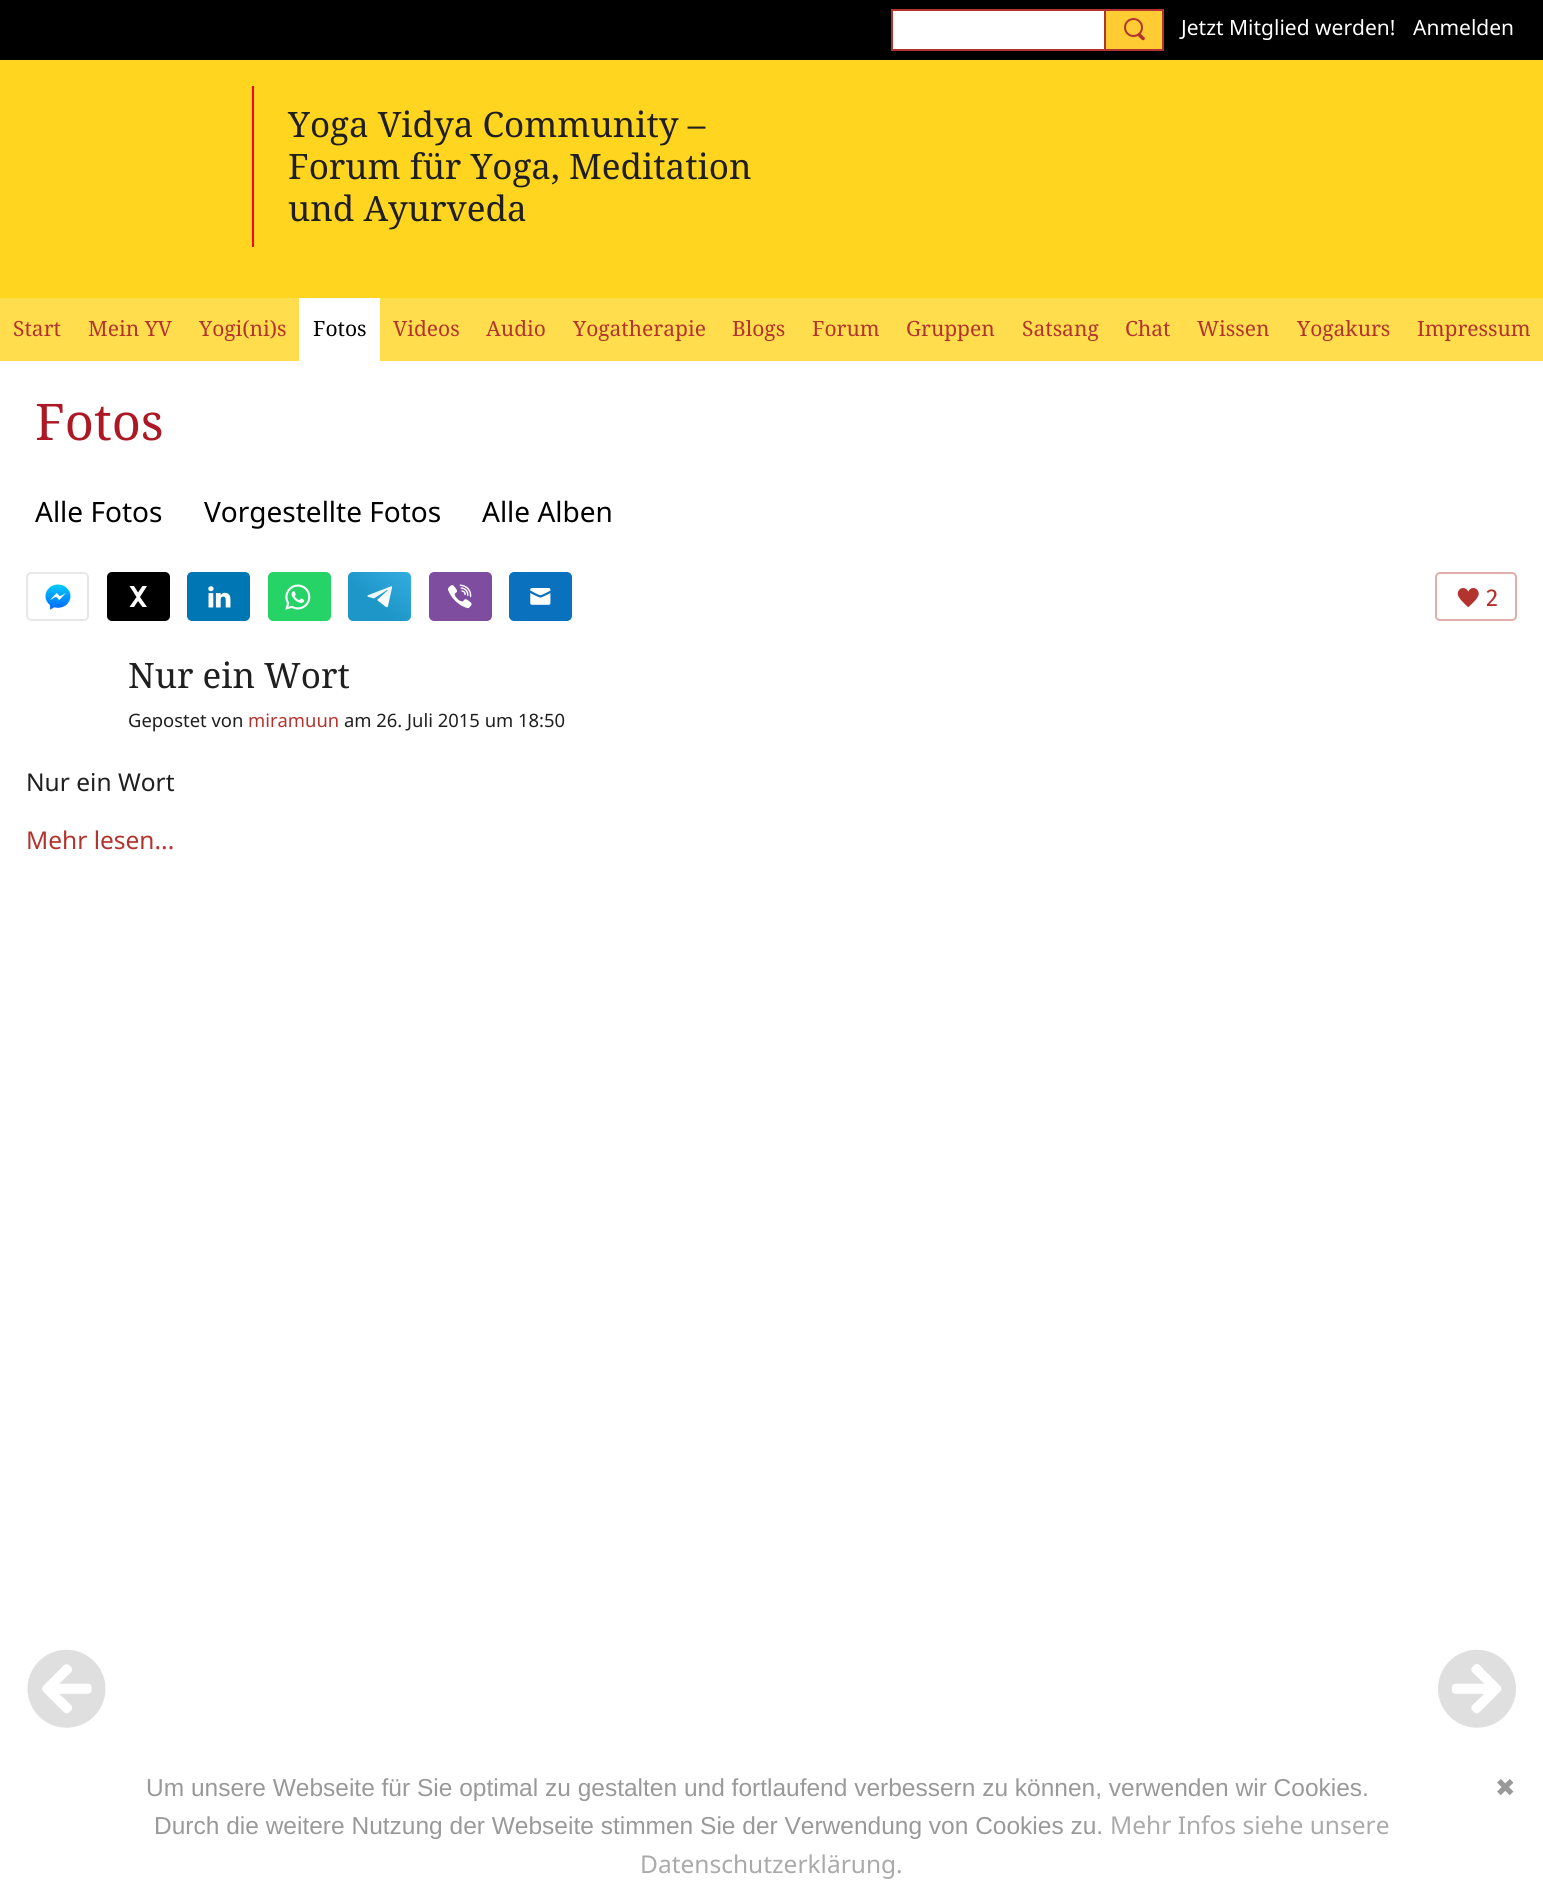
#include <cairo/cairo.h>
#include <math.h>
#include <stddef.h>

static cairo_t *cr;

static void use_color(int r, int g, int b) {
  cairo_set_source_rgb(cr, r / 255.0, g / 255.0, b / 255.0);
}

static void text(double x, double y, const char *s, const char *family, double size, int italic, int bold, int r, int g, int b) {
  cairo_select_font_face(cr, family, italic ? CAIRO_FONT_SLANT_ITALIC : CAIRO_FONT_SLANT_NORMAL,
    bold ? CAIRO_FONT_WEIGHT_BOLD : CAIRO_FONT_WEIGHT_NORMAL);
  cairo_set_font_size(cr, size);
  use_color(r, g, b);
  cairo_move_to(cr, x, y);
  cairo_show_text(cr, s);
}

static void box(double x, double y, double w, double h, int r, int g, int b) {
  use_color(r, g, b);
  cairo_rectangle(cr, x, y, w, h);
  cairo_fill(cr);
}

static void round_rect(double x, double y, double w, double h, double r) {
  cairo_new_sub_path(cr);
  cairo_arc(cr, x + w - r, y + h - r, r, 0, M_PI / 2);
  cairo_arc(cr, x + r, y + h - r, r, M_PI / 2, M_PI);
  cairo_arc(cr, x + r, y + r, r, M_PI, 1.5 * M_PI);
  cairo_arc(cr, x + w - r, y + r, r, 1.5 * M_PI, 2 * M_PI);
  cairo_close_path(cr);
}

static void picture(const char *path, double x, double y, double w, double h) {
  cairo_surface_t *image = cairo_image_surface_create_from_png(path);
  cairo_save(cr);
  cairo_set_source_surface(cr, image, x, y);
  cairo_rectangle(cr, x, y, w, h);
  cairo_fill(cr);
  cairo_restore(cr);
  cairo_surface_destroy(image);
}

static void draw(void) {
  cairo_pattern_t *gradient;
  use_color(255, 213, 32);
  cairo_paint(cr);
  box(0, 0, 1543, 60, 0, 0, 0);
  use_color(255, 255, 255);
  cairo_rectangle(cr, 892, 10, 213, 40);
  cairo_fill_preserve(cr);
  use_color(179, 52, 46);
  cairo_stroke(cr);
  use_color(255, 204, 51);
  cairo_rectangle(cr, 1105, 10, 58, 40);
  cairo_fill_preserve(cr);
  use_color(179, 52, 46);
  cairo_stroke(cr);
  cairo_arc(cr, 1133.5, 27.5, 8.5, 0, 2 * M_PI);
  cairo_stroke(cr);
  cairo_new_path(cr);
  cairo_move_to(cr, 1140.5, 33.5);
  cairo_line_to(cr, 1144.5, 37.5);
  cairo_curve_to(cr, 1145, 38, 1145, 39, 1144.5, 39.5);
  cairo_curve_to(cr, 1143, 42, 1139.5, 37.5, 1138, 36);
  cairo_curve_to(cr, 1136.5, 34.5, 1139, 32, 1140.5, 33.5);
  cairo_close_path(cr);
  cairo_fill(cr);
  box(252, 86, 2, 161, 255, 0, 0);
  box(0, 298, 1543, 63, 255, 221, 77);
  box(299, 298, 81, 63, 255, 255, 255);
  box(0, 361, 1543, 1530, 255, 255, 255);
  picture("img_01.png", 26, 572, 63, 49);
  use_color(0, 0, 0);
  round_rect(107, 572, 63, 49, 5);
  cairo_fill(cr);
  use_color(255, 255, 255);
  cairo_set_fill_rule(cr, CAIRO_FILL_RULE_EVEN_ODD);
  cairo_new_path(cr);
  cairo_move_to(cr, 129.5, 586);
  cairo_line_to(cr, 136.5, 597);
  cairo_line_to(cr, 129.5, 607);
  cairo_line_to(cr, 134, 607);
  cairo_line_to(cr, 138, 601);
  cairo_line_to(cr, 142.5, 607);
  cairo_line_to(cr, 147, 607);
  cairo_line_to(cr, 140, 597);
  cairo_line_to(cr, 147, 586);
  cairo_line_to(cr, 142.5, 586);
  cairo_line_to(cr, 138, 592.5);
  cairo_line_to(cr, 134, 586);
  cairo_close_path(cr);
  cairo_fill(cr);
  picture("img_02.png", 187, 572, 63, 49);
  picture("img_03.png", 268, 572, 63, 49);
  gradient = cairo_pattern_create_linear(417, 573, 385, 612);
  cairo_pattern_add_color_stop_rgba(gradient, 0, 0.216, 0.682, 0.886, 1);
  cairo_pattern_add_color_stop_rgba(gradient, 1, 0.118, 0.588, 0.784, 1);
  cairo_set_source(cr, gradient);
  cairo_pattern_destroy(gradient);
  round_rect(348, 572, 63, 49, 5);
  cairo_fill(cr);
  gradient = cairo_pattern_create_linear(383, 596, 385, 602);
  cairo_pattern_add_color_stop_rgba(gradient, 0, 0.937, 0.969, 0.988, 1);
  cairo_pattern_add_color_stop_rgba(gradient, 1, 1, 1, 1, 1);
  cairo_set_source(cr, gradient);
  cairo_pattern_destroy(gradient);
  cairo_set_fill_rule(cr, CAIRO_FILL_RULE_WINDING);
  cairo_new_path(cr);
  cairo_move_to(cr, 377, 600);
  cairo_line_to(cr, 386, 607);
  cairo_curve_to(cr, 387, 607.5, 388, 607, 388, 606);
  cairo_line_to(cr, 392, 588);
  cairo_curve_to(cr, 392.5, 586.5, 391.5, 586, 390.5, 586.5);
  cairo_line_to(cr, 368.5, 595);
  cairo_curve_to(cr, 367, 595.5, 367, 596.5, 368.5, 597);
  cairo_line_to(cr, 374, 598.5);
  cairo_line_to(cr, 387, 590);
  cairo_curve_to(cr, 387.5, 590, 388, 590, 387.5, 590.5);
  cairo_fill(cr);
  picture("img_04.png", 429, 572, 63, 49);
  picture("img_05.png", 509, 572, 63, 49);
  round_rect(1436, 573, 80, 47, 4);
  use_color(225, 174, 171);
  cairo_stroke(cr);
  picture("img_06.png", 1457, 588, 22, 20);
  picture("img_07.png", 27, 1649, 79, 79);
  picture("img_08.png", 1438, 1649, 78, 79);
  text(1181, 35, "Jetzt Mitglied werden!", "Noto Sans", 21, 0, 0, 255, 255, 255);
  text(1413, 35, "Anmelden", "Noto Sans", 21, 0, 0, 255, 255, 255);
  text(288, 137, "Yoga Vidya Community –", "Noto Serif", 35, 0, 0, 31, 31, 31);
  text(288, 179, "Forum für Yoga, Meditation", "Noto Serif", 35, 0, 0, 31, 31, 31);
  text(288, 221, "und Ayurveda", "Noto Serif", 35, 0, 0, 31, 31, 31);
  text(13, 336, "Start", "Noto Serif", 21, 0, 0, 179, 52, 46);
  text(88, 336, "Mein YV", "Noto Serif", 21, 0, 0, 179, 52, 46);
  text(199, 336, "Yogi(ni)s", "Noto Serif", 21, 0, 0, 179, 52, 46);
  text(313, 336, "Fotos", "Noto Serif", 21, 0, 0, 0, 0, 0);
  text(393, 336, "Videos", "Noto Serif", 21, 0, 0, 179, 52, 46);
  text(486, 336, "Audio", "Noto Serif", 21, 0, 0, 179, 52, 46);
  text(573, 336, "Yogatherapie", "Noto Serif", 21, 0, 0, 179, 52, 46);
  text(732, 336, "Blogs", "Noto Serif", 21, 0, 0, 179, 52, 46);
  text(812, 336, "Forum", "Noto Serif", 21, 0, 0, 179, 52, 46);
  text(906, 336, "Gruppen", "Noto Serif", 21, 0, 0, 179, 52, 46);
  text(1022, 336, "Satsang", "Noto Serif", 21, 0, 0, 179, 52, 46);
  text(1125, 336, "Chat", "Noto Serif", 21, 0, 0, 179, 52, 46);
  text(1197, 336, "Wissen", "Noto Serif", 21, 0, 0, 179, 52, 46);
  text(1297, 336, "Yogakurs", "Noto Serif", 21, 0, 0, 179, 52, 46);
  text(1417, 336, "Impressum", "Noto Serif", 21, 0, 0, 179, 52, 46);
  text(35, 440, "Fotos", "Noto Serif", 50.5, 0, 0, 172, 25, 36);
  text(35, 522, "Alle Fotos", "Noto Sans", 28, 0, 0, 0, 0, 0);
  text(204, 522, "Vorgestellte Fotos", "Noto Sans", 28, 0, 0, 0, 0, 0);
  text(482, 522, "Alle Alben", "Noto Sans", 28, 0, 0, 0, 0, 0);
  text(1486, 606, "2", "Fira Sans", 24.5, 0, 0, 179, 52, 46);
  text(128, 688, "Nur ein Wort", "Noto Serif", 35, 0, 0, 31, 31, 31);
  text(128, 727, "Gepostet von", "Noto Sans", 18.4, 0, 0, 31, 31, 31);
  text(248, 727, "miramuun", "Noto Sans", 18.4, 0, 0, 179, 52, 46);
  text(344, 727, "am 26. Juli 2015 um 18:50", "Noto Sans", 18.4, 0, 0, 31, 31, 31);
  text(26, 791, "Nur ein Wort", "Noto Sans", 24.5, 0, 0, 31, 31, 31);
  text(26, 849, "Mehr lesen...", "Noto Sans", 24.5, 0, 0, 179, 52, 46);
  text(146, 1796, "Um unsere Webseite für Sie optimal zu gestalten und fortlaufend verbessern zu können, verwenden wir Cookies.", "Liberation Sans", 24.5, 0, 0, 153, 153, 153);
  text(1495, 1796, "✖", "DejaVu Sans", 24.5, 0, 0, 153, 153, 153);
  text(154, 1834, "Durch die weitere Nutzung der Webseite stimmen Sie der Verwendung von Cookies zu.", "Liberation Sans", 24.5, 0, 0, 153, 153, 153);
  text(1110, 1834, "Mehr Infos siehe unsere", "Noto Sans", 24.5, 0, 0, 170, 170, 170);
  text(640, 1873, "Datenschutzerklärung.", "Noto Sans", 24.5, 0, 0, 170, 170, 170);
}

int main(void) {
  cairo_surface_t *surface = cairo_image_surface_create(CAIRO_FORMAT_RGB24, 1543, 1891);
  cr = cairo_create(surface);
  cairo_font_options_t *options = cairo_font_options_create();
  cairo_font_options_set_hint_metrics(options, CAIRO_HINT_METRICS_OFF);
  cairo_font_options_set_hint_style(options, CAIRO_HINT_STYLE_NONE);
  cairo_set_font_options(cr, options);
  cairo_set_miter_limit(cr, 4);
  draw();
  cairo_surface_write_to_png(surface, "out.png");
  cairo_font_options_destroy(options);
  cairo_destroy(cr);
  cairo_surface_destroy(surface);
  return 0;
}
